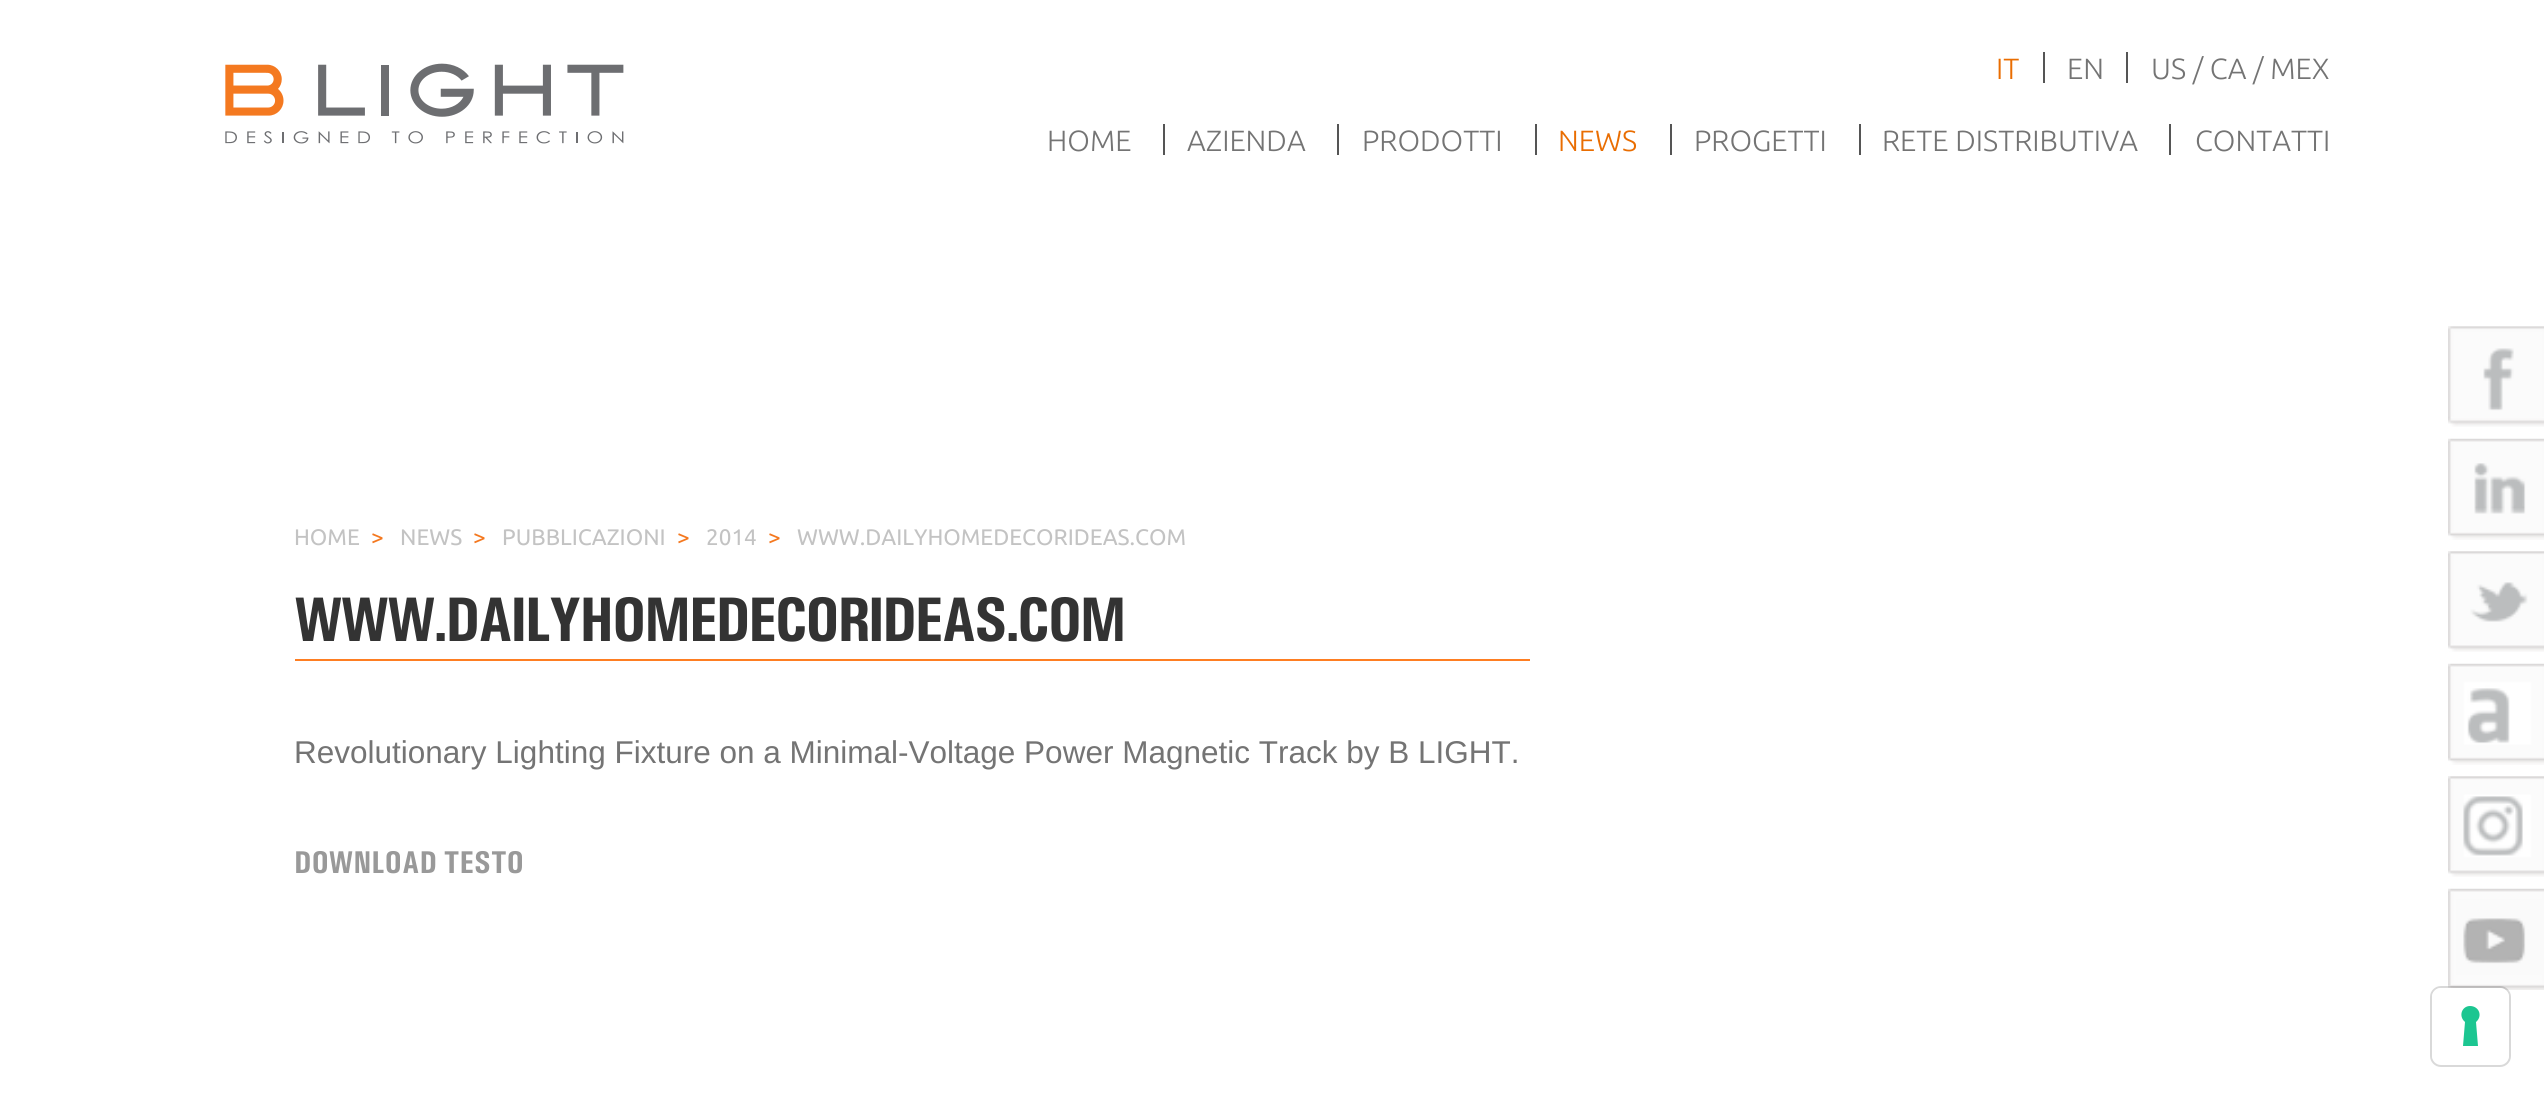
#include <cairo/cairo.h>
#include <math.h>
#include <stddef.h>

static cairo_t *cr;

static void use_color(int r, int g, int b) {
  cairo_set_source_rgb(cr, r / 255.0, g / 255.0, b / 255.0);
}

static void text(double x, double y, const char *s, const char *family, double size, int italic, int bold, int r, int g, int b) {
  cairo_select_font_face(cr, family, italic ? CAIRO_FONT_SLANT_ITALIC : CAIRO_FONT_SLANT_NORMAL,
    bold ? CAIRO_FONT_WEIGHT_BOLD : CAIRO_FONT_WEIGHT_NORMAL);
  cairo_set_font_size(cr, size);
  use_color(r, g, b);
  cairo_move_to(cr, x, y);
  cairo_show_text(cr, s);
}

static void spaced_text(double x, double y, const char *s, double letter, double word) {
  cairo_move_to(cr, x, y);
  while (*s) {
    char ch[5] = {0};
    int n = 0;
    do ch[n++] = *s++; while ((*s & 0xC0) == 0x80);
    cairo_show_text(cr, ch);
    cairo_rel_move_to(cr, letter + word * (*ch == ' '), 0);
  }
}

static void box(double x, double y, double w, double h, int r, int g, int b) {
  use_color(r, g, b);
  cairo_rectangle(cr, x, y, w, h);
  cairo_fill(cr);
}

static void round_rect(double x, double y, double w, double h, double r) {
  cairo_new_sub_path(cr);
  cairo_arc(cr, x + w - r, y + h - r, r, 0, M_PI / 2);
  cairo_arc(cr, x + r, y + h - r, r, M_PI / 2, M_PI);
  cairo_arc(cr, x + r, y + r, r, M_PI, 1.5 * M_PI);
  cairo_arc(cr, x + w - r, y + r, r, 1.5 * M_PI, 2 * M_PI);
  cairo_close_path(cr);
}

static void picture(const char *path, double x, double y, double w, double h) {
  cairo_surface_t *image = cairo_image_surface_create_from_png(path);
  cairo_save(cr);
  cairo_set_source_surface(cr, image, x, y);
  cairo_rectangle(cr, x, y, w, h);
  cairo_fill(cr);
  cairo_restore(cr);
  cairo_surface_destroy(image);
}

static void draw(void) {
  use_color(255, 255, 255);
  cairo_paint(cr);
  picture("img_01.png", 225, 63, 399, 81);
  box(2043, 52, 2, 31, 85, 85, 85);
  box(2126, 52, 2, 31, 85, 85, 85);
  box(1163, 124, 2, 31, 85, 85, 85);
  box(1337, 124, 2, 31, 85, 85, 85);
  box(1535, 124, 2, 31, 85, 85, 85);
  box(1670, 124, 2, 31, 85, 85, 85);
  box(1859, 124, 2, 31, 85, 85, 85);
  box(2169, 124, 2, 31, 85, 85, 85);
  box(295, 659, 1235, 2, 254, 126, 34);
  picture("img_02.png", 2448, 326, 96, 101);
  picture("img_03.png", 2448, 438, 96, 102);
  picture("img_04.png", 2448, 551, 96, 101);
  picture("img_05.png", 2448, 663, 96, 102);
  picture("img_06.png", 2448, 776, 96, 101);
  picture("img_07.png", 2448, 888, 96, 102);
  round_rect(2431, 987, 79, 79, 10);
  cairo_set_source_rgba(cr, 0, 0, 0, 0.15);
  cairo_stroke(cr);
  use_color(255, 255, 255);
  round_rect(2432, 988, 77, 76, 9);
  cairo_fill(cr);
  use_color(28, 198, 145);
  cairo_set_fill_rule(cr, CAIRO_FILL_RULE_EVEN_ODD);
  cairo_new_path(cr);
  cairo_move_to(cr, 2470, 1006);
  cairo_curve_to(cr, 2479, 1006, 2483, 1016, 2476, 1022);
  cairo_line_to(cr, 2478, 1046);
  cairo_line_to(cr, 2463, 1046);
  cairo_line_to(cr, 2465, 1022);
  cairo_curve_to(cr, 2458, 1016, 2462, 1006, 2470, 1006);
  cairo_close_path(cr);
  cairo_fill(cr);
  text(1996, 79, "IT", "Ubuntu Light", 29.25, 0, 0, 233, 109, 1);
  text(2067, 79, "EN", "Ubuntu Light", 29.25, 0, 0, 116, 116, 116);
  text(2151, 79, "US / CA / MEX", "Ubuntu Light", 29.25, 0, 0, 116, 116, 116);
  text(1047, 151, "HOME", "Ubuntu Light", 29.25, 0, 0, 116, 116, 116);
  text(1187, 151, "AZIENDA", "Ubuntu Light", 29.25, 0, 0, 116, 116, 116);
  text(1362, 151, "PRODOTTI", "Ubuntu Light", 29.25, 0, 0, 116, 116, 116);
  text(1558, 151, "NEWS", "Ubuntu Light", 29.25, 0, 0, 233, 109, 1);
  text(1694, 151, "PROGETTI", "Ubuntu Light", 29.25, 0, 0, 116, 116, 116);
  text(1882, 151, "RETE DISTRIBUTIVA", "Ubuntu Light", 29.25, 0, 0, 116, 116, 116);
  text(2195, 151, "CONTATTI", "Ubuntu Light", 29.25, 0, 0, 116, 116, 116);
  text(294, 545, "HOME", "Ubuntu", 22.5, 0, 0, 195, 195, 195);
  text(371, 545, ">", "Ubuntu", 22.5, 0, 0, 244, 120, 31);
  text(400, 545, "NEWS", "Ubuntu", 22.5, 0, 0, 195, 195, 195);
  text(473, 545, ">", "Ubuntu", 22.5, 0, 0, 244, 120, 31);
  text(502, 545, "PUBBLICAZIONI", "Ubuntu", 22.5, 0, 0, 195, 195, 195);
  text(677, 545, ">", "Ubuntu", 22.5, 0, 0, 244, 120, 31);
  text(706, 545, "2014", "Ubuntu", 22.5, 0, 0, 195, 195, 195);
  text(768, 545, ">", "Ubuntu", 22.5, 0, 0, 244, 120, 31);
  text(797, 545, "WWW.DAILYHOMEDECORIDEAS.COM", "Ubuntu", 22.5, 0, 0, 195, 195, 195);
  cairo_select_font_face(cr, "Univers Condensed", CAIRO_FONT_SLANT_NORMAL, CAIRO_FONT_WEIGHT_BOLD);
  cairo_set_font_size(cr, 63);
  use_color(51, 51, 51);
  spaced_text(294, 641, "WWW.DAILYHOMEDECORIDEAS.COM", -2.25, 0);
  text(294, 763, "Revolutionary Lighting Fixture on a Minimal-Voltage Power Magnetic Track by B LIGHT.", "Liberation Sans", 31.5, 0, 0, 116, 116, 116);
  text(294, 873, "DOWNLOAD TESTO", "Univers Condensed", 31.5, 0, 1, 153, 153, 153);
}

int main(void) {
  cairo_surface_t *surface = cairo_image_surface_create(CAIRO_FORMAT_RGB24, 2544, 1099);
  cr = cairo_create(surface);
  cairo_font_options_t *options = cairo_font_options_create();
  cairo_font_options_set_hint_metrics(options, CAIRO_HINT_METRICS_OFF);
  cairo_font_options_set_hint_style(options, CAIRO_HINT_STYLE_NONE);
  cairo_set_font_options(cr, options);
  cairo_set_miter_limit(cr, 4);
  draw();
  cairo_surface_write_to_png(surface, "out.png");
  cairo_font_options_destroy(options);
  cairo_destroy(cr);
  cairo_surface_destroy(surface);
  return 0;
}
